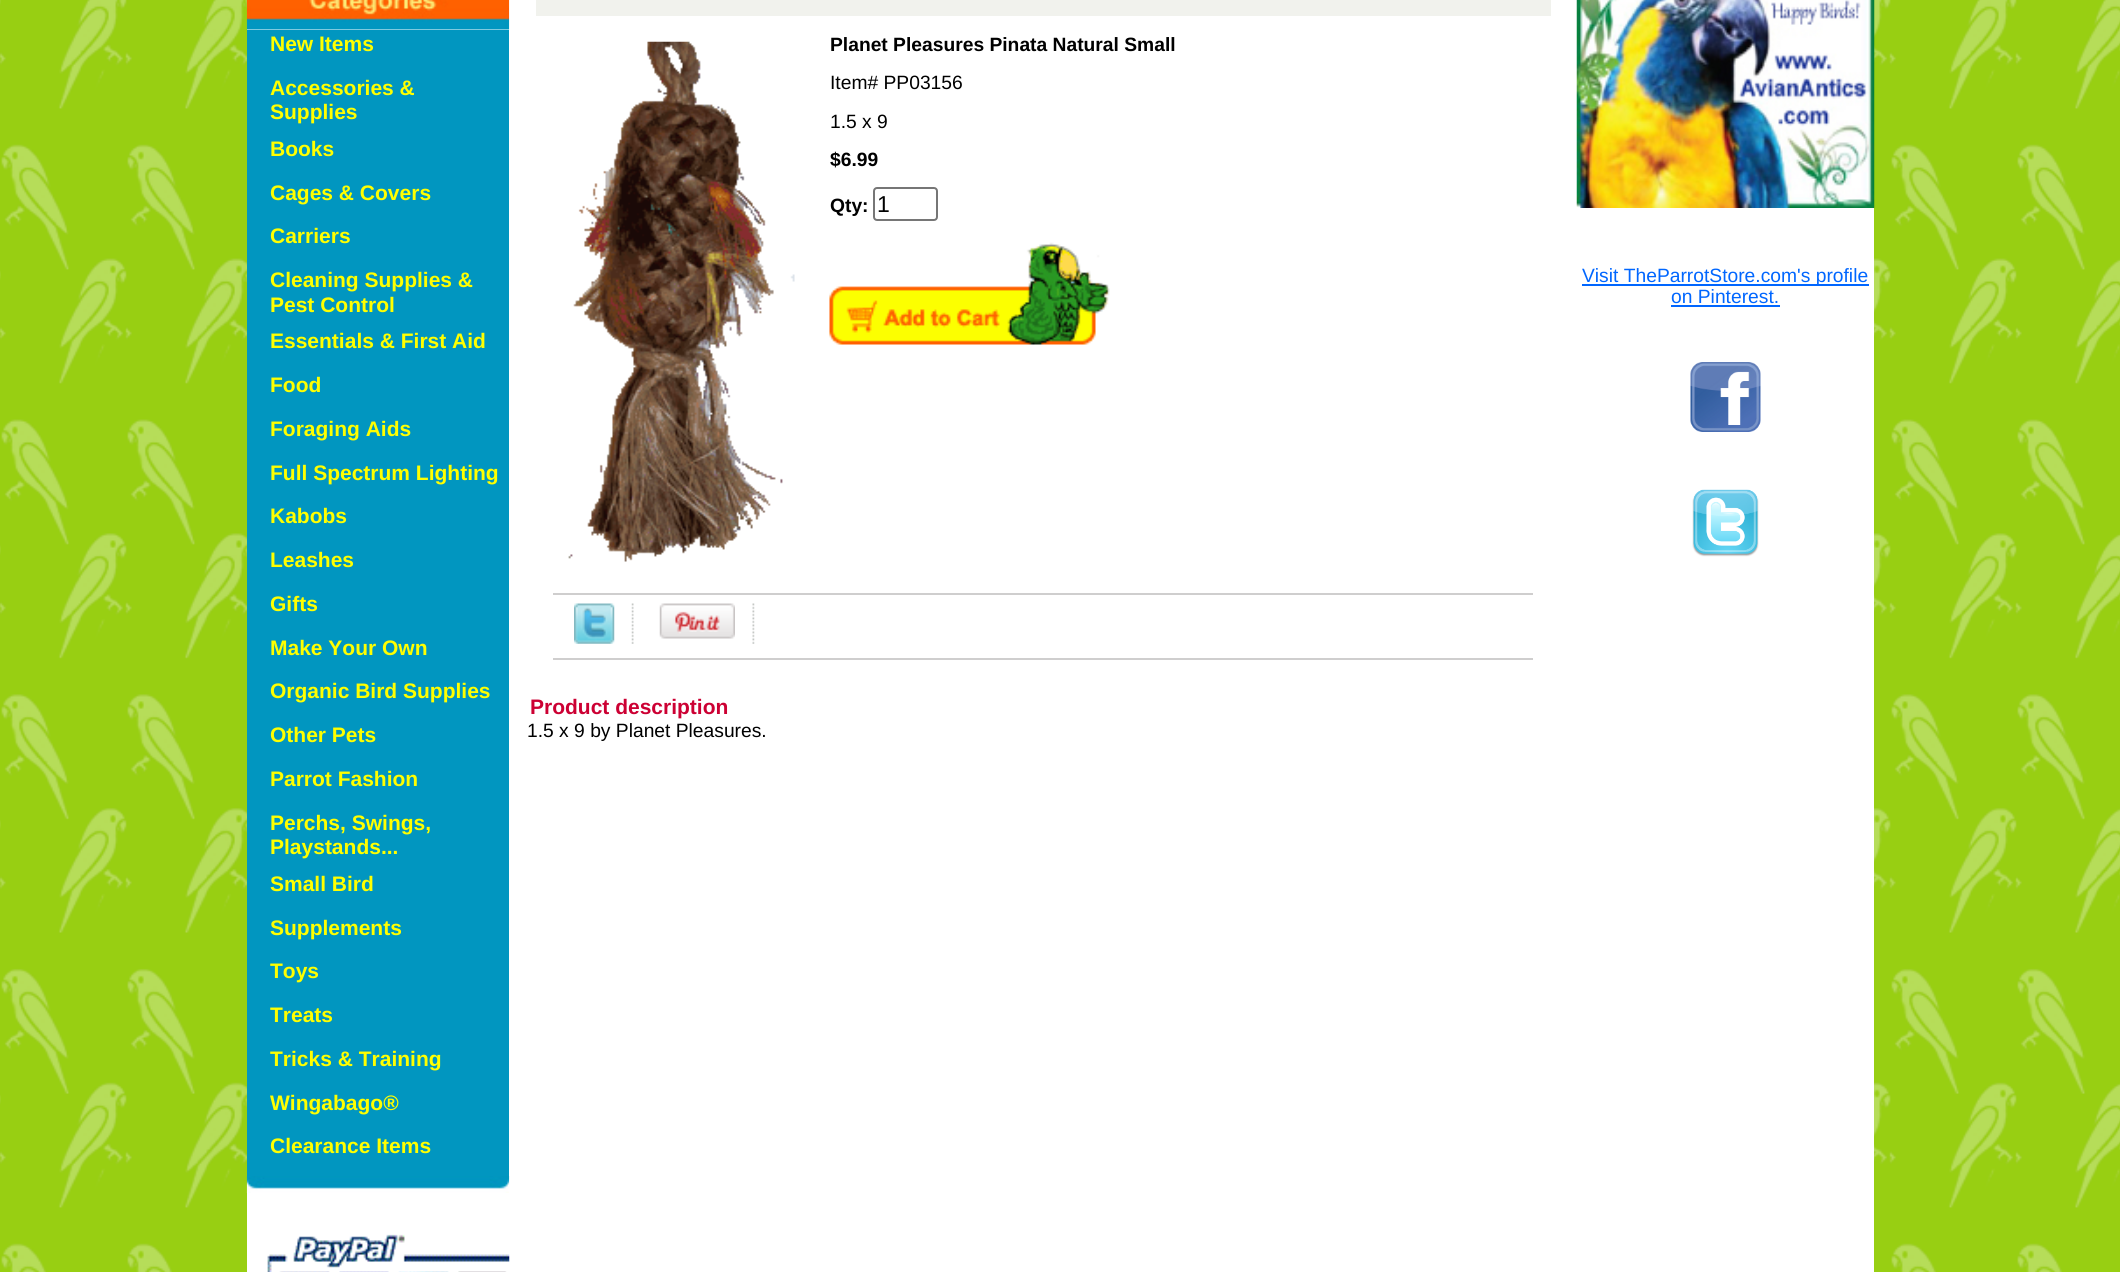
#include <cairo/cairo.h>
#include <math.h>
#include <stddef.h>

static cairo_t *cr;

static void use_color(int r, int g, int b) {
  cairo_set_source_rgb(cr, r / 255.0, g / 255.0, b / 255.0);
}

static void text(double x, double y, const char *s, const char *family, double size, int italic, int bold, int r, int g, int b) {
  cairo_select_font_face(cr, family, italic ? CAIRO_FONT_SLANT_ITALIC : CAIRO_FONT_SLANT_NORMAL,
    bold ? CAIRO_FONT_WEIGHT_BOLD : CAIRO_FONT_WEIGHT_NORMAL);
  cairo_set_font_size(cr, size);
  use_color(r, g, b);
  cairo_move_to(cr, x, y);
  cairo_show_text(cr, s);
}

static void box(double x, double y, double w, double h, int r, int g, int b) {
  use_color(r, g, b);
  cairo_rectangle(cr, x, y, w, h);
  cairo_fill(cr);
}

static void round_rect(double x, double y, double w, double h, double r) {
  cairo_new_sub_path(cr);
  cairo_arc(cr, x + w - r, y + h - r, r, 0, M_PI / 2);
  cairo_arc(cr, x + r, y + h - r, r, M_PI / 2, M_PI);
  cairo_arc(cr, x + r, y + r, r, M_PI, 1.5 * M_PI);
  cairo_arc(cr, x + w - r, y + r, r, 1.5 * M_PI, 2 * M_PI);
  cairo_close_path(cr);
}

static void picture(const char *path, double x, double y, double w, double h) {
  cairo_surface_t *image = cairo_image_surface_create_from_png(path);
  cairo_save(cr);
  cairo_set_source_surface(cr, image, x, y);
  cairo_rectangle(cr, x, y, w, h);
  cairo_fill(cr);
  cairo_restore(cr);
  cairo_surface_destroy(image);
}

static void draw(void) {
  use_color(255, 255, 255);
  cairo_paint(cr);
  picture("img_01.png", 0, 0, 2120, 1272);
  box(247, 0, 1330, 1272, 255, 255, 255);
  picture("img_02.png", 246, 0, 264, 30);
  box(247, 30, 262, 1146, 1, 150, 192);
  picture("img_03.png", 246, 1176, 264, 17);
  picture("img_04.png", 267, 1234, 243, 38);
  box(536, 0, 1015, 16, 241, 242, 237);
  picture("img_05.png", 568, 41, 227, 521);
  round_rect(874, 188, 63, 32, 3);
  use_color(118, 118, 118);
  cairo_stroke(cr);
  picture("img_06.png", 829, 242, 281, 103);
  box(553, 593, 980, 2, 207, 206, 206);
  picture("img_07.png", 574, 603, 41, 41);
  picture("img_08.png", 631, 603, 3, 41);
  picture("img_09.png", 659, 603, 76, 36);
  picture("img_10.png", 752, 603, 3, 41);
  box(553, 658, 980, 2, 207, 206, 206);
  box(1577, 208, 297, 1064, 255, 255, 255);
  picture("img_11.png", 1576, 0, 299, 208);
  box(1582, 284, 287, 2, 0, 102, 255);
  box(1671, 305, 109, 2, 0, 102, 255);
  picture("img_12.png", 1690, 362, 71, 70);
  picture("img_13.png", 1692, 489, 67, 68);
  text(270, 51, "New Items", "Liberation Sans", 21, 0, 1, 255, 255, 0);
  text(270, 95, "Accessories &", "Liberation Sans", 21, 0, 1, 255, 255, 0);
  text(270, 119, "Supplies", "Liberation Sans", 21, 0, 1, 255, 255, 0);
  text(270, 156, "Books", "Liberation Sans", 21, 0, 1, 255, 255, 0);
  text(270, 200, "Cages & Covers", "Liberation Sans", 21, 0, 1, 255, 255, 0);
  text(270, 243, "Carriers", "Liberation Sans", 21, 0, 1, 255, 255, 0);
  text(270, 287, "Cleaning Supplies &", "Liberation Sans", 21, 0, 1, 255, 255, 0);
  text(270, 312, "Pest Control", "Liberation Sans", 21, 0, 1, 255, 255, 0);
  text(270, 348, "Essentials & First Aid", "Liberation Sans", 21, 0, 1, 255, 255, 0);
  text(270, 392, "Food", "Liberation Sans", 21, 0, 1, 255, 255, 0);
  text(270, 436, "Foraging Aids", "Liberation Sans", 21, 0, 1, 255, 255, 0);
  text(270, 480, "Full Spectrum Lighting", "Liberation Sans", 21, 0, 1, 255, 255, 0);
  text(270, 523, "Kabobs", "Liberation Sans", 21, 0, 1, 255, 255, 0);
  text(270, 567, "Leashes", "Liberation Sans", 21, 0, 1, 255, 255, 0);
  text(270, 611, "Gifts", "Liberation Sans", 21, 0, 1, 255, 255, 0);
  text(270, 655, "Make Your Own", "Liberation Sans", 21, 0, 1, 255, 255, 0);
  text(270, 698, "Organic Bird Supplies", "Liberation Sans", 21, 0, 1, 255, 255, 0);
  text(270, 742, "Other Pets", "Liberation Sans", 21, 0, 1, 255, 255, 0);
  text(270, 786, "Parrot Fashion", "Liberation Sans", 21, 0, 1, 255, 255, 0);
  text(270, 830, "Perchs, Swings,", "Liberation Sans", 21, 0, 1, 255, 255, 0);
  text(270, 854, "Playstands...", "Liberation Sans", 21, 0, 1, 255, 255, 0);
  text(270, 891, "Small Bird", "Liberation Sans", 21, 0, 1, 255, 255, 0);
  text(270, 935, "Supplements", "Liberation Sans", 21, 0, 1, 255, 255, 0);
  text(270, 978, "Toys", "Liberation Sans", 21, 0, 1, 255, 255, 0);
  text(270, 1022, "Treats", "Liberation Sans", 21, 0, 1, 255, 255, 0);
  text(270, 1066, "Tricks & Training", "Liberation Sans", 21, 0, 1, 255, 255, 0);
  text(270, 1110, "Wingabago®", "Liberation Sans", 21, 0, 1, 255, 255, 0);
  text(270, 1153, "Clearance Items", "Liberation Sans", 21, 0, 1, 255, 255, 0);
  text(830, 51, "Planet Pleasures Pinata Natural Small", "Liberation Sans", 19.25, 0, 1, 0, 0, 0);
  text(830, 89, "Item# PP03156", "Liberation Sans", 19.25, 0, 0, 0, 0, 0);
  text(830, 128, "1.5 x 9", "Liberation Sans", 19.25, 0, 0, 0, 0, 0);
  text(830, 166, "$6.99", "Liberation Sans", 19.25, 0, 1, 0, 0, 0);
  text(830, 212, "Qty:", "Liberation Sans", 19.25, 0, 1, 0, 0, 0);
  text(877, 212, "1", "Liberation Sans", 23, 0, 0, 0, 0, 0);
  text(530, 714, "Product description", "Liberation Sans", 21, 0, 1, 204, 0, 51);
  text(527, 737, "1.5 x 9 by Planet Pleasures.", "Liberation Sans", 19.25, 0, 0, 0, 0, 0);
  text(1582, 282, "Visit TheParrotStore.com's profile", "Liberation Sans", 19.25, 0, 0, 0, 102, 255);
  text(1671, 303, "on Pinterest.", "Liberation Sans", 19.25, 0, 0, 0, 102, 255);
}

int main(void) {
  cairo_surface_t *surface = cairo_image_surface_create(CAIRO_FORMAT_RGB24, 2120, 1272);
  cr = cairo_create(surface);
  cairo_font_options_t *options = cairo_font_options_create();
  cairo_font_options_set_hint_metrics(options, CAIRO_HINT_METRICS_OFF);
  cairo_font_options_set_hint_style(options, CAIRO_HINT_STYLE_NONE);
  cairo_set_font_options(cr, options);
  cairo_set_miter_limit(cr, 4);
  draw();
  cairo_surface_write_to_png(surface, "out.png");
  cairo_font_options_destroy(options);
  cairo_destroy(cr);
  cairo_surface_destroy(surface);
  return 0;
}
